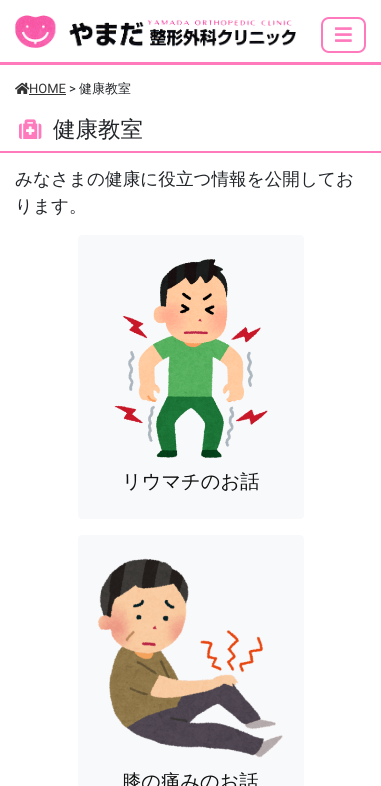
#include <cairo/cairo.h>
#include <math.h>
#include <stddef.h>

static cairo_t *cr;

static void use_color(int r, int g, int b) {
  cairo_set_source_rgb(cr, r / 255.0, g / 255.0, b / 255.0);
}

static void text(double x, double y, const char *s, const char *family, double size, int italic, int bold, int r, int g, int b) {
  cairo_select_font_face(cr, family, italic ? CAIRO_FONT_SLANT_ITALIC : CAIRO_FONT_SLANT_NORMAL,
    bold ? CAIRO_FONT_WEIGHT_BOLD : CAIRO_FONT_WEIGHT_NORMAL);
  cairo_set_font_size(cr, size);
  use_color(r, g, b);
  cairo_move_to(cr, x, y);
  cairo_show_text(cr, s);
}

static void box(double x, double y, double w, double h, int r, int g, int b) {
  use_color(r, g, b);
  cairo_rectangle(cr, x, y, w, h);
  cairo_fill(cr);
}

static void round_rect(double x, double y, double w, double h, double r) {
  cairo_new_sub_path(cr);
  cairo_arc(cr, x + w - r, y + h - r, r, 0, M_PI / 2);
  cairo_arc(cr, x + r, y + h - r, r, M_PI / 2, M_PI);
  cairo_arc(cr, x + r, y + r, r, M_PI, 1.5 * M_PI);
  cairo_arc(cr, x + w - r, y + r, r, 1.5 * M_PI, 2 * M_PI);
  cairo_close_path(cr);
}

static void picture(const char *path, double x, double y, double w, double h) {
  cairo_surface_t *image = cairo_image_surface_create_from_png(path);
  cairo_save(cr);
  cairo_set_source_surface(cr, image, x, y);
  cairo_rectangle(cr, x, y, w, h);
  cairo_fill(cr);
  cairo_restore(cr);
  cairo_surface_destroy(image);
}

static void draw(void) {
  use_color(255, 255, 255);
  cairo_paint(cr);
  picture("img_01.png", 15, 15, 281, 33);
  round_rect(322, 18, 43, 34, 7);
  use_color(255, 122, 189);
  cairo_stroke(cr);
  picture("img_02.png", 335, 27, 17, 15);
  box(0, 62, 381, 3, 255, 122, 189);
  picture("img_03.png", 15, 82, 15, 12);
  box(29, 94, 37, 1, 51, 51, 51);
  picture("img_04.png", 19, 119, 23, 20);
  box(0, 151, 381, 2, 255, 122, 189);
  use_color(248, 249, 250);
  round_rect(78, 235, 226, 284, 4);
  cairo_fill(cr);
  picture("img_05.png", 114, 258, 154, 200);
  round_rect(78, 535, 226, 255, 4);
  cairo_fill(cr);
  picture("img_06.png", 97, 558, 186, 200);
  text(29, 93, "HOME", "Roboto", 13, 0, 0, 51, 51, 51);
  text(69, 93, ">", "Roboto", 13, 0, 0, 33, 37, 41);
  text(79, 93, "健康教室", "WenQuanYi Zen Hei Medium", 13, 0, 0, 33, 37, 41);
  text(53, 137, "健康教室", "WenQuanYi Zen Hei Medium", 22.5, 0, 0, 33, 37, 41);
  text(15, 185, "みなさまの健康に役立つ情報を公開してお", "WenQuanYi Zen Hei Medium", 17.6, 0, 0, 33, 37, 41);
  text(15, 212, "ります。", "WenQuanYi Zen Hei Medium", 17.6, 0, 0, 33, 37, 41);
  text(122, 488, "リウマチのお話", "WenQuanYi Zen Hei Medium", 19.25, 0, 0, 17, 17, 17);
  text(122, 788, "膝の痛みのお話", "WenQuanYi Zen Hei Medium", 19.25, 0, 0, 17, 17, 17);
}

int main(void) {
  cairo_surface_t *surface = cairo_image_surface_create(CAIRO_FORMAT_RGB24, 381, 786);
  cr = cairo_create(surface);
  cairo_font_options_t *options = cairo_font_options_create();
  cairo_font_options_set_hint_metrics(options, CAIRO_HINT_METRICS_OFF);
  cairo_font_options_set_hint_style(options, CAIRO_HINT_STYLE_NONE);
  cairo_set_font_options(cr, options);
  cairo_set_miter_limit(cr, 4);
  draw();
  cairo_surface_write_to_png(surface, "out.png");
  cairo_font_options_destroy(options);
  cairo_destroy(cr);
  cairo_surface_destroy(surface);
  return 0;
}
